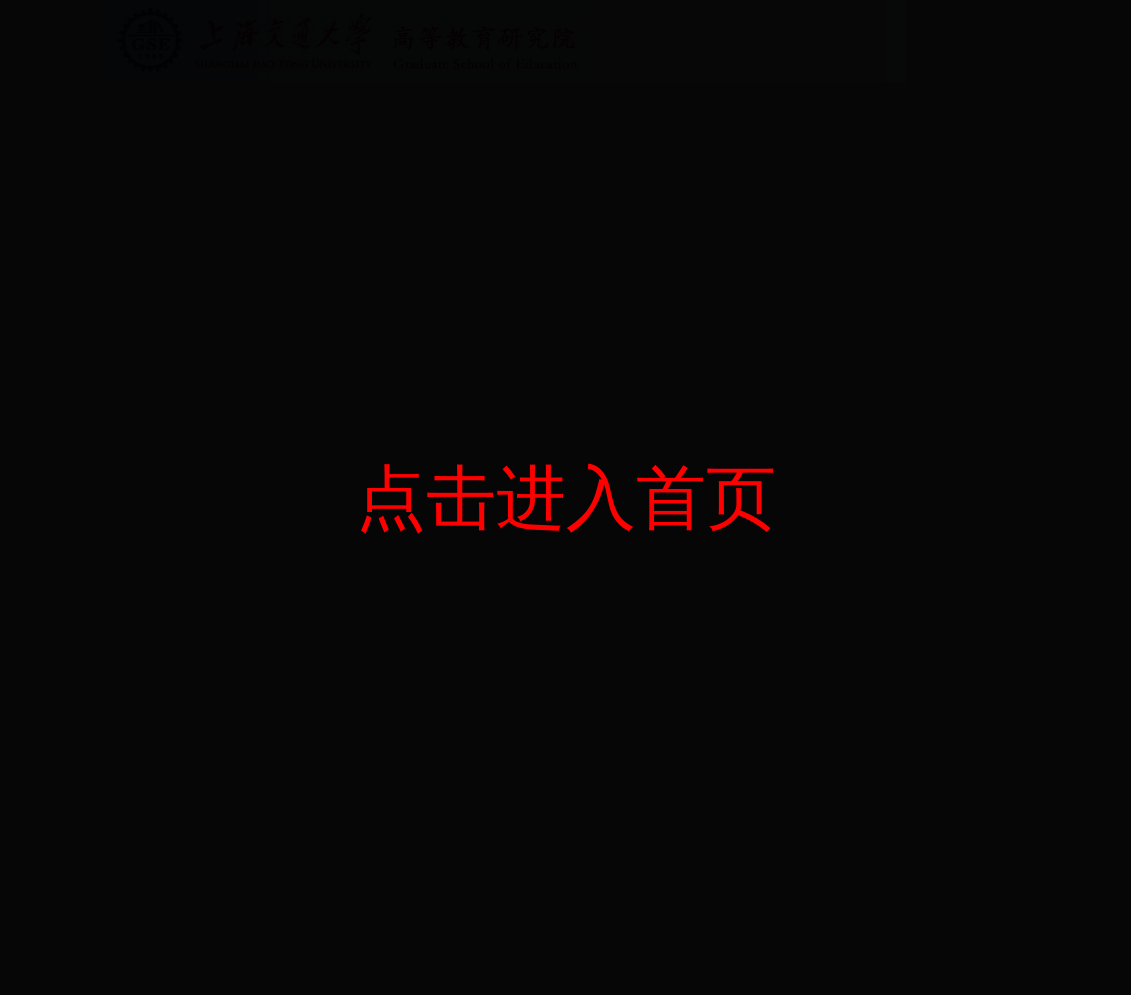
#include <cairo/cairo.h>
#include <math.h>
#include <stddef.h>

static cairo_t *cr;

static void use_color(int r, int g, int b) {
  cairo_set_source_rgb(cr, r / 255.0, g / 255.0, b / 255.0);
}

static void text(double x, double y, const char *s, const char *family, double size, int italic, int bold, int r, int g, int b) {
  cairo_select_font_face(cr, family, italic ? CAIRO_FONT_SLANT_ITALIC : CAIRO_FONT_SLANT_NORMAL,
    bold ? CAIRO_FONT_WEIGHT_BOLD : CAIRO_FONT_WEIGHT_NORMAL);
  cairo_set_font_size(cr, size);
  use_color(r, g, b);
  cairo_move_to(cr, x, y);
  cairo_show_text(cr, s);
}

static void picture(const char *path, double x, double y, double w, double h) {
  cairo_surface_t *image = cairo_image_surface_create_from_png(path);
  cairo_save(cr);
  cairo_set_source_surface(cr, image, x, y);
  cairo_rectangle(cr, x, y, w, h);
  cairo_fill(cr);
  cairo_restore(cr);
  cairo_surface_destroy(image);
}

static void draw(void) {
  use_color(6, 6, 7);
  cairo_paint(cr);
  picture("img_01.png", 106, 0, 801, 82);
  text(356, 522, "点击进入首页", "WenQuanYi Zen Hei Medium", 70, 0, 0, 255, 0, 0);
}

int main(void) {
  cairo_surface_t *surface = cairo_image_surface_create(CAIRO_FORMAT_RGB24, 1131, 995);
  cr = cairo_create(surface);
  cairo_font_options_t *options = cairo_font_options_create();
  cairo_font_options_set_hint_metrics(options, CAIRO_HINT_METRICS_OFF);
  cairo_font_options_set_hint_style(options, CAIRO_HINT_STYLE_NONE);
  cairo_set_font_options(cr, options);
  cairo_set_miter_limit(cr, 4);
  draw();
  cairo_surface_write_to_png(surface, "out.png");
  cairo_font_options_destroy(options);
  cairo_destroy(cr);
  cairo_surface_destroy(surface);
  return 0;
}
